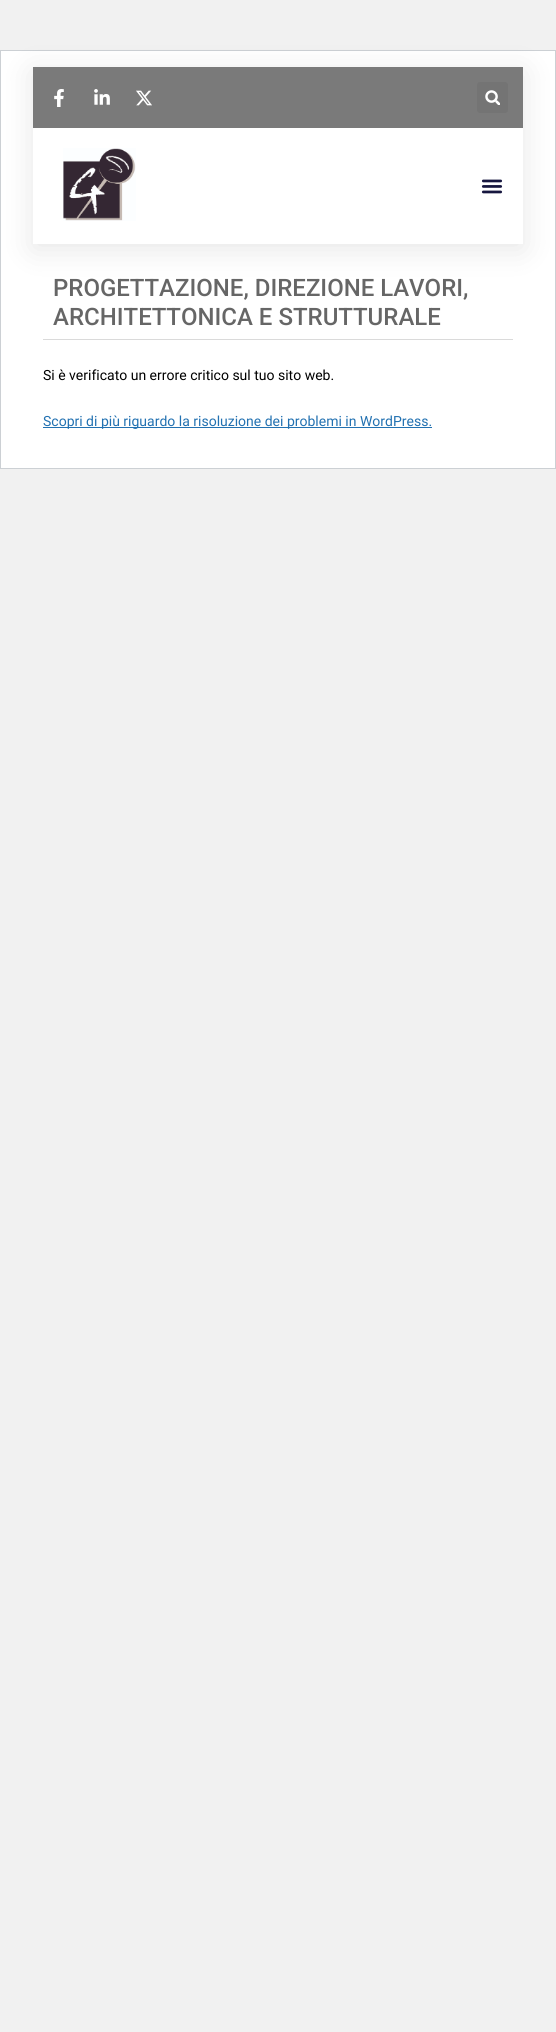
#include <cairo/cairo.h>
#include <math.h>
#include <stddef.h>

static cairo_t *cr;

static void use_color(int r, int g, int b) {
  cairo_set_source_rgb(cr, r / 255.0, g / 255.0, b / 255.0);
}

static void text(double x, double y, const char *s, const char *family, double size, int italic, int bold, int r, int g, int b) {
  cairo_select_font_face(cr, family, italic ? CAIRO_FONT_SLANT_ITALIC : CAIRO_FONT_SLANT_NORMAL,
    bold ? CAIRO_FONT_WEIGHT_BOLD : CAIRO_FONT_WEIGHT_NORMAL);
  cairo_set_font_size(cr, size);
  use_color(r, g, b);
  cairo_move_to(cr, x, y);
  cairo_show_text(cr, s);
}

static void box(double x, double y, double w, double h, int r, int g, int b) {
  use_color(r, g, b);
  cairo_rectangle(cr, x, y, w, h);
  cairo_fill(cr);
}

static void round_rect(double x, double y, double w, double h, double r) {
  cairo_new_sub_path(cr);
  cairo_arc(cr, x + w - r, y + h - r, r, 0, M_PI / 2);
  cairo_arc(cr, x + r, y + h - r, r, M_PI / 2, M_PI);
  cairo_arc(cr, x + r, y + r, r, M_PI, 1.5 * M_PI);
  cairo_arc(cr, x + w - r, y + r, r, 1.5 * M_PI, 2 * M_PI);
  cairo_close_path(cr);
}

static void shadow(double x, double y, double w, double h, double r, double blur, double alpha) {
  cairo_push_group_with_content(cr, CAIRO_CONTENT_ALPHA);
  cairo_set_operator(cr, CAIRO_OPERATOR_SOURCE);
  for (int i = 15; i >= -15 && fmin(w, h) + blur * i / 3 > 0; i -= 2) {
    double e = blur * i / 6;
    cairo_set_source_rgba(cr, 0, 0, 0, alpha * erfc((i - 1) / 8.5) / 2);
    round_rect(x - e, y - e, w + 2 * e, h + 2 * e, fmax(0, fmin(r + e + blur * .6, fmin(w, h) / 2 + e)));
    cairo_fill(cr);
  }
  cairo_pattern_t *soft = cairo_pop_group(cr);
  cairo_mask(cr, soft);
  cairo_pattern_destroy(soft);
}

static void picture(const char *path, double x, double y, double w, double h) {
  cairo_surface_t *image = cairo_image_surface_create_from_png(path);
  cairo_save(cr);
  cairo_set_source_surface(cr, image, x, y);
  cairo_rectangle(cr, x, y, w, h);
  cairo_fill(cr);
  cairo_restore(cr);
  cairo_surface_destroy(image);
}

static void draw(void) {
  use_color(241, 241, 241);
  cairo_paint(cr);
  use_color(255, 255, 255);
  cairo_rectangle(cr, 0.5, 50.5, 555, 418);
  cairo_fill_preserve(cr);
  use_color(204, 208, 212);
  cairo_set_line_width(cr, 1);
  cairo_stroke(cr);
  cairo_save(cr);
  cairo_set_fill_rule(cr, CAIRO_FILL_RULE_EVEN_ODD);
  cairo_new_path(cr);
  cairo_move_to(cr, 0, 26);
  cairo_line_to(cr, 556, 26);
  cairo_line_to(cr, 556, 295);
  cairo_line_to(cr, 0, 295);
  cairo_close_path(cr);
  cairo_move_to(cr, 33, 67);
  cairo_line_to(cr, 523, 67);
  cairo_line_to(cr, 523, 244);
  cairo_line_to(cr, 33, 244);
  cairo_close_path(cr);
  cairo_clip(cr);
  use_color(0, 0, 0);
  shadow(33, 72, 490, 177, 0, 15, 0.1);
  cairo_restore(cr);
  box(33, 67, 490, 61, 122, 122, 122);
  picture("img_01.png", 54, 89, 10, 18);
  picture("img_02.png", 94, 89, 16, 16);
  picture("img_03.png", 136, 90, 16, 16);
  use_color(116, 116, 116);
  round_rect(477, 82, 31, 31, 3);
  cairo_fill(cr);
  picture("img_04.png", 485, 90, 15, 15);
  picture("img_05.png", 63, 148, 73, 73);
  picture("img_06.png", 481, 179, 22, 15);
  box(43, 339, 470, 1, 218, 218, 218);
  box(43, 427, 389, 1, 34, 113, 177);
  text(53, 296, "PROGETTAZIONE, DIREZIONE LAVORI,", "Roboto Medium", 24, 0, 0, 102, 102, 102);
  text(53, 325, "ARCHITETTONICA E STRUTTURALE", "Roboto Medium", 24, 0, 0, 102, 102, 102);
  text(43, 380, "Si è verificato un errore critico sul tuo sito web.", "Roboto", 14, 0, 0, 0, 0, 0);
  text(43, 426, "Scopri di più riguardo la risoluzione dei problemi in WordPress.", "Roboto", 14, 0, 0, 34, 113, 177);
}

int main(void) {
  cairo_surface_t *surface = cairo_image_surface_create(CAIRO_FORMAT_RGB24, 556, 2032);
  cr = cairo_create(surface);
  cairo_font_options_t *options = cairo_font_options_create();
  cairo_font_options_set_hint_metrics(options, CAIRO_HINT_METRICS_OFF);
  cairo_font_options_set_hint_style(options, CAIRO_HINT_STYLE_NONE);
  cairo_set_font_options(cr, options);
  cairo_set_miter_limit(cr, 4);
  draw();
  cairo_surface_write_to_png(surface, "out.png");
  cairo_font_options_destroy(options);
  cairo_destroy(cr);
  cairo_surface_destroy(surface);
  return 0;
}
